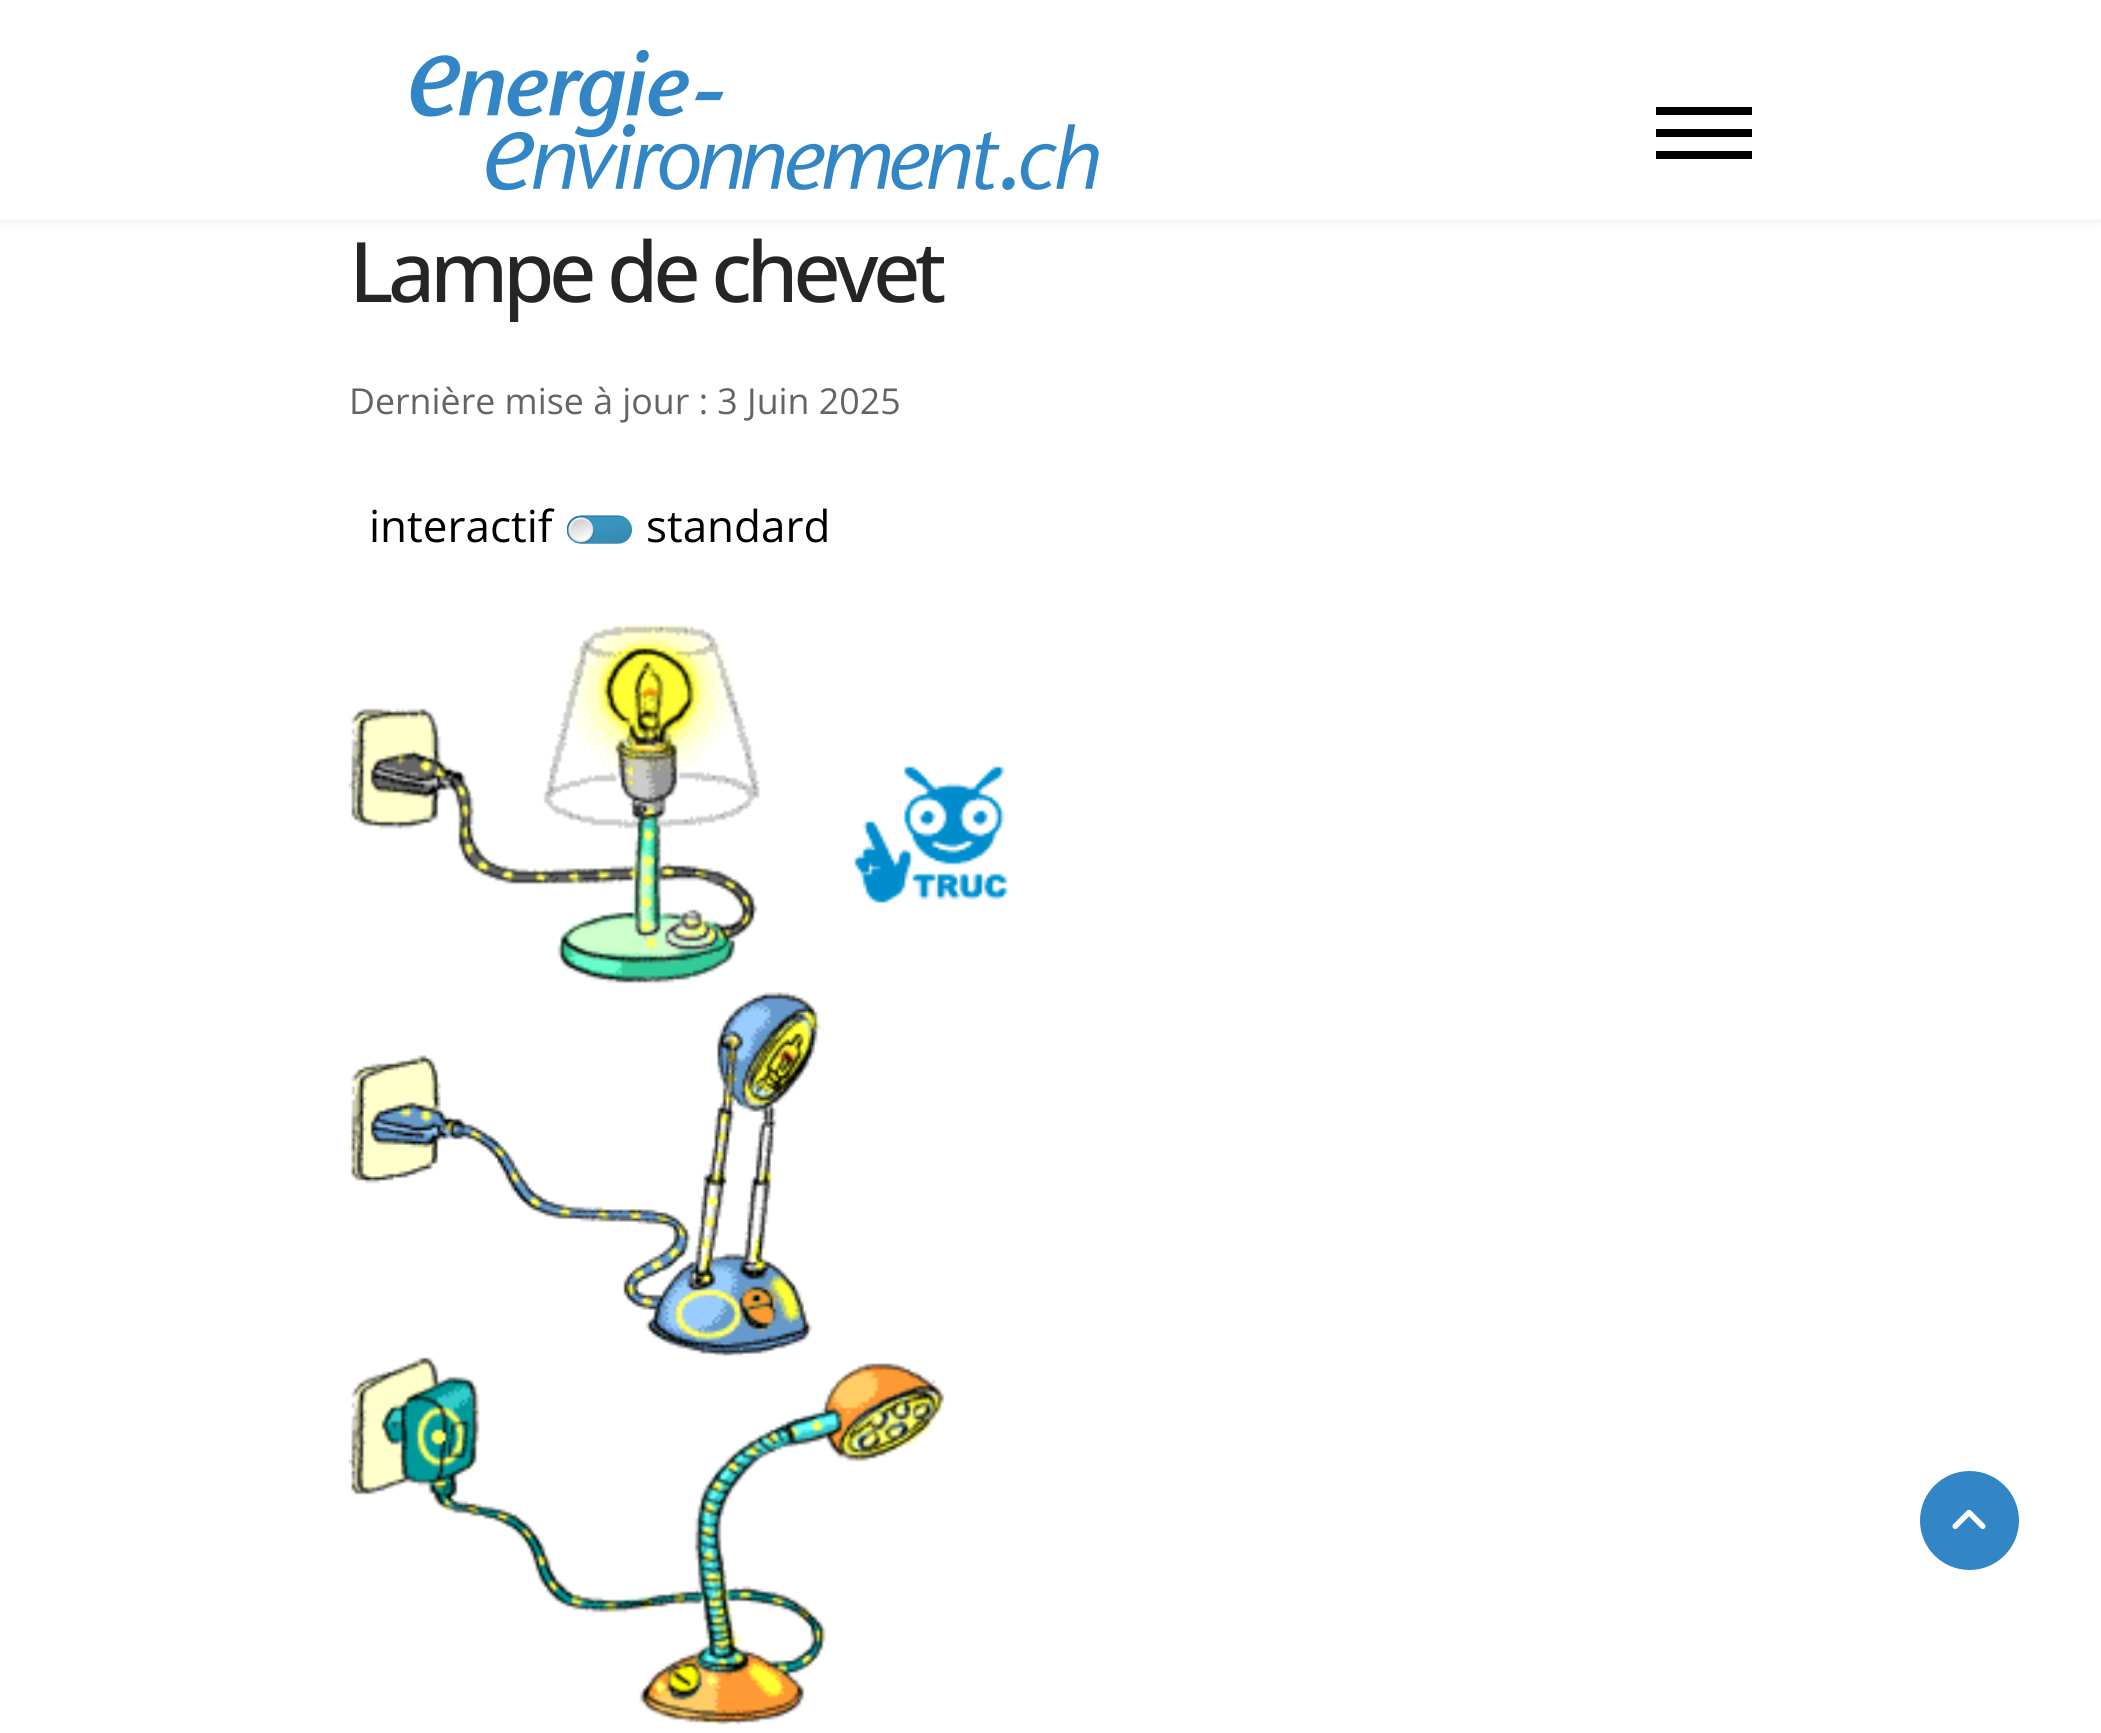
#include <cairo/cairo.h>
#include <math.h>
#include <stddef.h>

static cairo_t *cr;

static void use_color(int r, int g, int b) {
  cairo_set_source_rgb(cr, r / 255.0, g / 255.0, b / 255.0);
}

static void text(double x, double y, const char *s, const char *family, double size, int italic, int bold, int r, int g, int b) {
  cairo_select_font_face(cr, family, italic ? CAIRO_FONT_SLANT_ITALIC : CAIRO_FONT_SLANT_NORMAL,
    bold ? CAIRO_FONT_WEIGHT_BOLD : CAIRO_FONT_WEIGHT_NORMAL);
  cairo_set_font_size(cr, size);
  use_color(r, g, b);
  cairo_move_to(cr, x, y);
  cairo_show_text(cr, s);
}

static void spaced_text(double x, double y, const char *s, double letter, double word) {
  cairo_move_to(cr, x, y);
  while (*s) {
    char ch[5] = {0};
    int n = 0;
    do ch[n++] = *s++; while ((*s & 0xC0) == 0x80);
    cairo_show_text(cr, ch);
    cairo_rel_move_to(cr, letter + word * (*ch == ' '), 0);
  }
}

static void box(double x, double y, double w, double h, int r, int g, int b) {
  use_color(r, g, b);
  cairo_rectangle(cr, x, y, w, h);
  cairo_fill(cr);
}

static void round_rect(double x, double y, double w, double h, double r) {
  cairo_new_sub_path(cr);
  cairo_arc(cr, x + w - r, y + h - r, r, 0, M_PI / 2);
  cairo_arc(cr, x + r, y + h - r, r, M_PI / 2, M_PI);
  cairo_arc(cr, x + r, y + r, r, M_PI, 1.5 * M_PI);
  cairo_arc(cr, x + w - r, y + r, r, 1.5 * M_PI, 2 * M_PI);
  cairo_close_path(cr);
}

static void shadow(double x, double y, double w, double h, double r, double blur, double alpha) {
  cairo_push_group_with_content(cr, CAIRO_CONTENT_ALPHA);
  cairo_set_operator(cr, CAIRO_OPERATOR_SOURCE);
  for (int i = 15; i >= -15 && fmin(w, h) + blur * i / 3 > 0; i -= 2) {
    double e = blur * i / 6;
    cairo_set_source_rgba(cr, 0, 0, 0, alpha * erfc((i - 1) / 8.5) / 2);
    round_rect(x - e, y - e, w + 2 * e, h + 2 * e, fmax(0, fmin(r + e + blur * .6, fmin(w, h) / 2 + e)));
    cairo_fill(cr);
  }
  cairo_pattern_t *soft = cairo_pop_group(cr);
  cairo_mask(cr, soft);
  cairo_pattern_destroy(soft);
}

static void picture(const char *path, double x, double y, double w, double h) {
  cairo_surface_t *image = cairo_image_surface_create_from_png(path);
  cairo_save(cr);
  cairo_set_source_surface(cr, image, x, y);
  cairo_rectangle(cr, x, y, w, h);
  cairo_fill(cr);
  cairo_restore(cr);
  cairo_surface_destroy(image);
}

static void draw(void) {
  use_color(255, 255, 255);
  cairo_paint(cr);
  use_color(0, 0, 0);
  shadow(0, 0, 2101, 220, 0, 5.5, 0.1);
  box(0, 0, 2101, 220, 255, 255, 255);
  picture("img_01.png", 410, 50, 689, 141);
  box(1656, 107, 96, 8, 0, 0, 0);
  box(1656, 129, 96, 8, 0, 0, 0);
  box(1656, 151, 96, 8, 0, 0, 0);
  picture("img_02.png", 567, 515, 66, 29);
  picture("img_03.png", 349, 624, 411, 360);
  picture("img_04.png", 854, 766, 154, 137);
  picture("img_05.png", 349, 992, 472, 365);
  picture("img_06.png", 349, 1355, 596, 370);
  use_color(51, 134, 197);
  cairo_arc(cr, 1969.5, 1520.5, 49.5, 0, 2 * M_PI);
  cairo_fill(cr);
  picture("img_07.png", 1952, 1509, 34, 20);
  cairo_select_font_face(cr, "Open Sans Medium", CAIRO_FONT_SLANT_NORMAL, CAIRO_FONT_WEIGHT_NORMAL);
  cairo_set_font_size(cr, 83.5);
  use_color(37, 37, 37);
  spaced_text(349, 302, "Lampe de chevet", -5.5, 0);
  text(349, 414, "Dernière mise à jour : 3 Juin 2025", "Open Sans", 35.75, 0, 0, 100, 100, 100);
  text(369, 542, "interactif", "Open Sans", 44, 0, 0, 0, 0, 0);
  text(646, 542, "standard", "Open Sans", 44, 0, 0, 0, 0, 0);
}

int main(void) {
  cairo_surface_t *surface = cairo_image_surface_create(CAIRO_FORMAT_RGB24, 2101, 1733);
  cr = cairo_create(surface);
  cairo_font_options_t *options = cairo_font_options_create();
  cairo_font_options_set_hint_metrics(options, CAIRO_HINT_METRICS_OFF);
  cairo_font_options_set_hint_style(options, CAIRO_HINT_STYLE_NONE);
  cairo_set_font_options(cr, options);
  cairo_set_miter_limit(cr, 4);
  draw();
  cairo_surface_write_to_png(surface, "out.png");
  cairo_font_options_destroy(options);
  cairo_destroy(cr);
  cairo_surface_destroy(surface);
  return 0;
}
